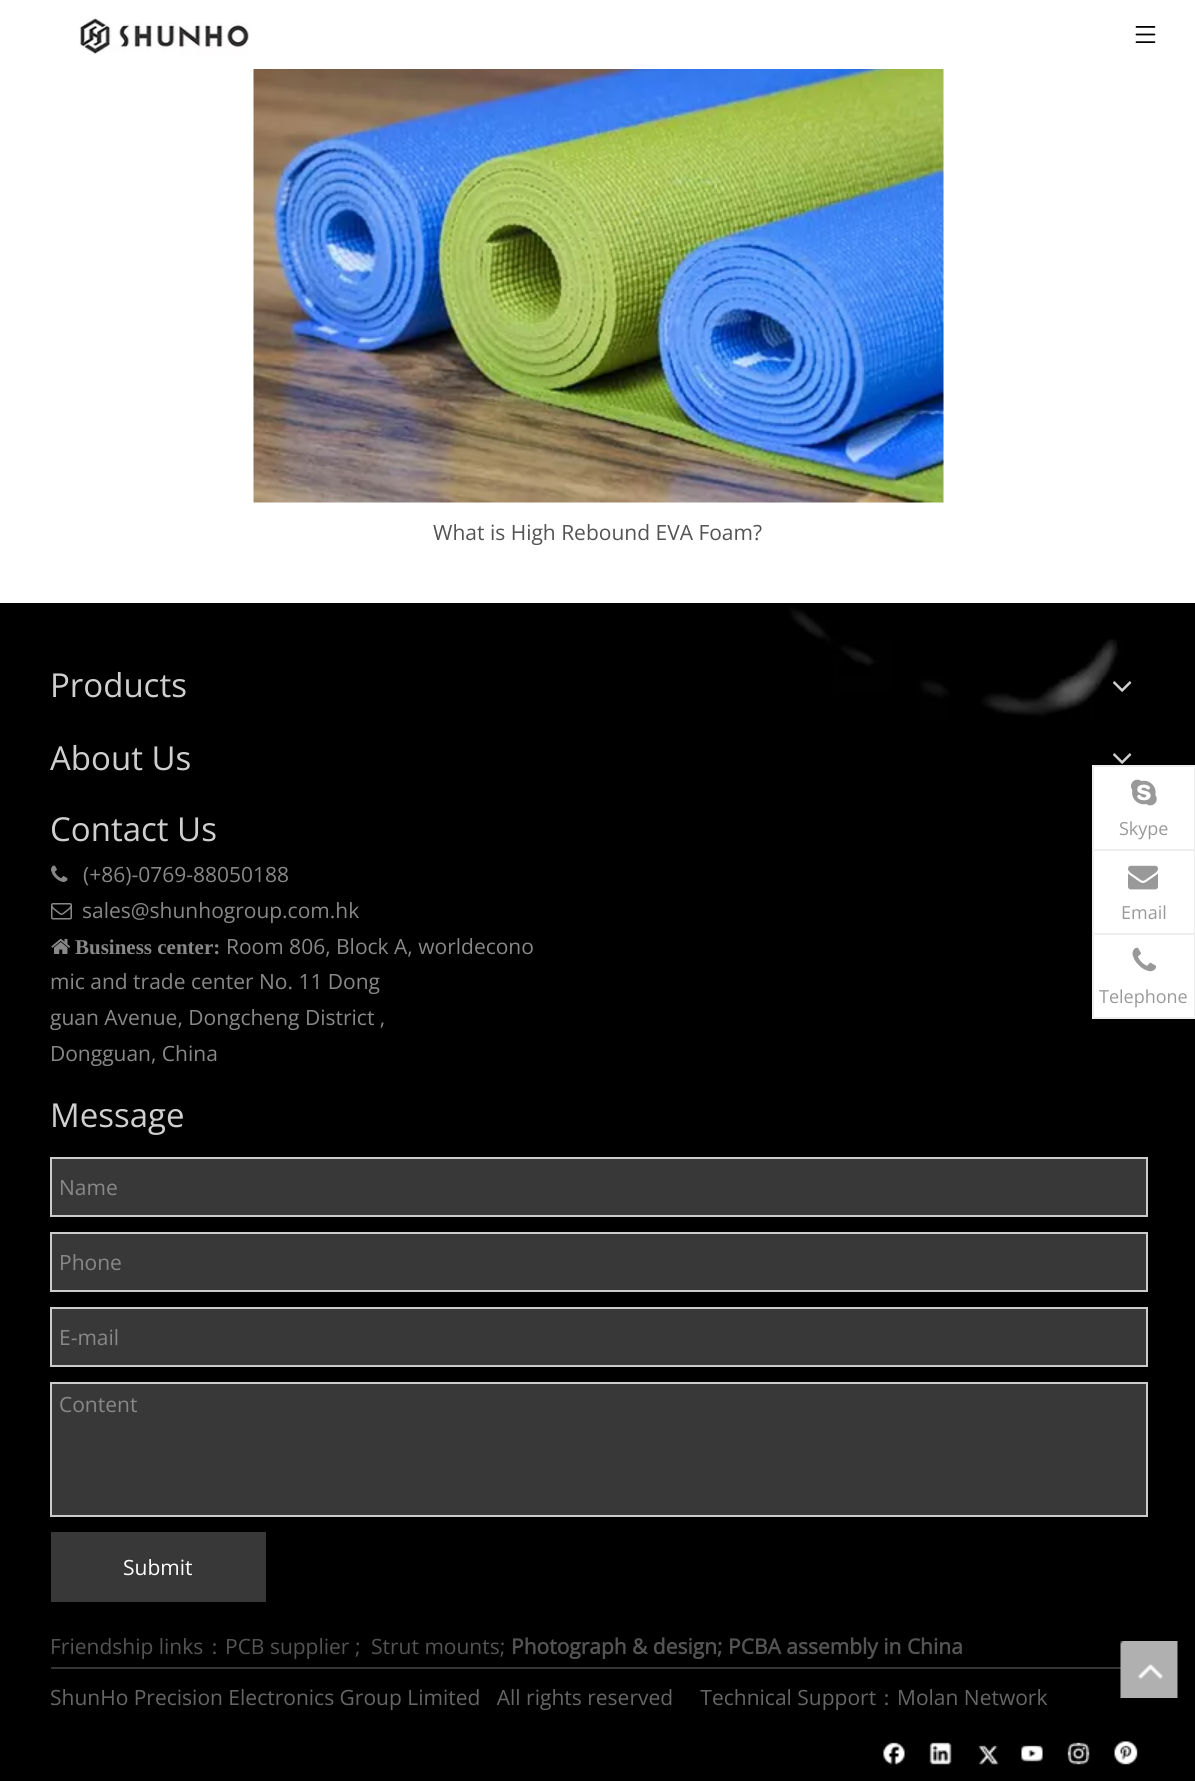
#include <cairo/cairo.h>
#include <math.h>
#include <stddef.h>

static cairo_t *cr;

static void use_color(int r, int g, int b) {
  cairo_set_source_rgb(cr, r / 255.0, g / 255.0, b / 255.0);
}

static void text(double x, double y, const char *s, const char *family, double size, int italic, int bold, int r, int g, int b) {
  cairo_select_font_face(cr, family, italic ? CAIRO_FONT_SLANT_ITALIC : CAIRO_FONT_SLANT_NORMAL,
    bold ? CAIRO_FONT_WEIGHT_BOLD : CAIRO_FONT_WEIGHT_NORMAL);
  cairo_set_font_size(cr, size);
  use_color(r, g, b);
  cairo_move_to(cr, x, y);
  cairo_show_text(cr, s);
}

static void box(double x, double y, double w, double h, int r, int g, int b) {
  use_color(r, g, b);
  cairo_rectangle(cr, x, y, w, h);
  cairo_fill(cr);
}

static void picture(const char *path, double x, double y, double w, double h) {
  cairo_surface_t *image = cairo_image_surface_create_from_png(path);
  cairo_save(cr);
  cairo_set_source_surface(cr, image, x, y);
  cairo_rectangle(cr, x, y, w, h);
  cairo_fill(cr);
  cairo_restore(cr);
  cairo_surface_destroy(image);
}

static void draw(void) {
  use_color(255, 255, 255);
  cairo_paint(cr);
  picture("img_01.png", 79, 18, 170, 38);
  picture("img_02.png", 1135, 26, 21, 17);
  picture("img_03.png", 253, 69, 691, 434);
  picture("img_04.png", 0, 603, 1195, 1178);
  picture("img_05.png", 1113, 681, 19, 11);
  picture("img_05.png", 1113, 753, 19, 11);
  picture("img_06.png", 51, 865, 17, 17);
  picture("img_07.png", 51, 903, 21, 17);
  picture("img_08.png", 51, 939, 20, 15);
  use_color(56, 56, 56);
  cairo_rectangle(cr, 51, 1158, 1096, 58);
  cairo_fill_preserve(cr);
  use_color(204, 204, 204);
  cairo_stroke(cr);
  use_color(56, 56, 56);
  cairo_rectangle(cr, 51, 1233, 1096, 58);
  cairo_fill_preserve(cr);
  use_color(204, 204, 204);
  cairo_stroke(cr);
  use_color(56, 56, 56);
  cairo_rectangle(cr, 51, 1308, 1096, 58);
  cairo_fill_preserve(cr);
  use_color(204, 204, 204);
  cairo_stroke(cr);
  use_color(56, 56, 56);
  cairo_rectangle(cr, 51, 1383, 1096, 133);
  cairo_fill_preserve(cr);
  use_color(204, 204, 204);
  cairo_stroke(cr);
  box(51, 1532, 215, 70, 56, 56, 56);
  box(1094, 767, 100, 82, 255, 255, 255);
  box(1092, 765, 103, 2, 238, 238, 238);
  box(1194, 765, 1, 84, 238, 238, 238);
  box(1092, 765, 2, 84, 238, 238, 238);
  picture("img_09.png", 1131, 779, 26, 27);
  box(1094, 851, 100, 82, 255, 255, 255);
  box(1092, 849, 103, 2, 238, 238, 238);
  box(1194, 849, 1, 84, 238, 238, 238);
  box(1092, 849, 2, 84, 238, 238, 238);
  picture("img_10.png", 1128, 865, 30, 25);
  use_color(255, 255, 255);
  cairo_rectangle(cr, 1093, 934, 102, 84);
  cairo_fill_preserve(cr);
  use_color(238, 238, 238);
  cairo_stroke(cr);
  picture("img_11.png", 1132, 947, 24, 25);
  box(51, 1667, 1070, 2, 53, 53, 53);
  picture("img_12.png", 883, 1742, 22, 23);
  picture("img_13.png", 929, 1742, 23, 23);
  picture("img_14.png", 978, 1745, 21, 20);
  picture("img_15.png", 1021, 1745, 22, 17);
  picture("img_16.png", 1067, 1742, 23, 23);
  picture("img_17.png", 1114, 1741, 24, 24);
  picture("img_18.png", 1120, 1641, 58, 57);
  text(433, 540, "What is High Rebound EVA Foam?", "Open Sans", 21, 0, 0, 84, 84, 84);
  text(50, 697, "Products", "Open Sans", 33, 0, 0, 207, 207, 207);
  text(50, 770, "About Us", "Open Sans", 33, 0, 0, 207, 207, 207);
  text(50, 841, "Contact Us", "Open Sans", 33, 0, 0, 207, 207, 207);
  text(83, 882, "(+86)-0769-88050188", "Open Sans", 21, 0, 0, 136, 136, 136);
  text(82, 918, "sales@shunhogroup.com.hk", "Open Sans", 21, 0, 0, 136, 136, 136);
  text(75, 954, "Business center:", "Liberation Serif", 21, 0, 1, 136, 136, 136);
  text(226, 954, "Room 806, Block A, worldecono", "Open Sans", 21, 0, 0, 136, 136, 136);
  text(50, 989, "mic and trade center No. 11 Dong", "Open Sans", 21, 0, 0, 136, 136, 136);
  text(50, 1025, "guan Avenue, Dongcheng District ,", "Open Sans", 21, 0, 0, 136, 136, 136);
  text(50, 1061, "Dongguan, China", "Open Sans", 21, 0, 0, 136, 136, 136);
  text(50, 1127, "Message", "Open Sans", 33, 0, 0, 207, 207, 207);
  text(59, 1195, "Name", "Open Sans", 21, 0, 0, 136, 136, 136);
  text(59, 1270, "Phone", "Open Sans", 21, 0, 0, 136, 136, 136);
  text(59, 1345, "E-mail", "Open Sans", 21, 0, 0, 136, 136, 136);
  text(59, 1412, "Content", "Open Sans", 21, 0, 0, 136, 136, 136);
  text(123, 1575, "Submit", "Open Sans", 21, 0, 0, 255, 255, 255);
  text(1119, 835, "Skype", "Open Sans", 18, 0, 0, 153, 153, 153);
  text(1121, 919, "Email", "Open Sans", 18, 0, 0, 153, 153, 153);
  text(1099, 1003, "Telephone", "Open Sans", 18, 0, 0, 153, 153, 153);
  text(50, 1654, "Friendship links", "Open Sans", 21, 0, 0, 84, 84, 84);
  text(204, 1654, "：", "WenQuanYi Zen Hei Medium", 21, 0, 0, 84, 84, 84);
  text(225, 1654, "PCB supplier ;", "Open Sans", 21, 0, 0, 84, 84, 84);
  text(371, 1654, "Strut mounts;", "Open Sans", 21, 0, 0, 84, 84, 84);
  text(511, 1654, "Photograph & design; PCBA assembly in China", "Open Sans", 21, 0, 1, 84, 84, 84);
  text(50, 1705, "ShunHo Precision Electronics Group Limited   All rights reserved     Technical Support", "Open Sans", 21, 0, 0, 102, 102, 102);
  text(876, 1705, "：", "WenQuanYi Zen Hei Medium", 21, 0, 0, 102, 102, 102);
  text(897, 1705, "Molan Network", "Open Sans", 21, 0, 0, 102, 102, 102);
}

int main(void) {
  cairo_surface_t *surface = cairo_image_surface_create(CAIRO_FORMAT_RGB24, 1195, 1781);
  cr = cairo_create(surface);
  cairo_font_options_t *options = cairo_font_options_create();
  cairo_font_options_set_hint_metrics(options, CAIRO_HINT_METRICS_OFF);
  cairo_font_options_set_hint_style(options, CAIRO_HINT_STYLE_NONE);
  cairo_set_font_options(cr, options);
  cairo_set_miter_limit(cr, 4);
  draw();
  cairo_surface_write_to_png(surface, "out.png");
  cairo_font_options_destroy(options);
  cairo_destroy(cr);
  cairo_surface_destroy(surface);
  return 0;
}
